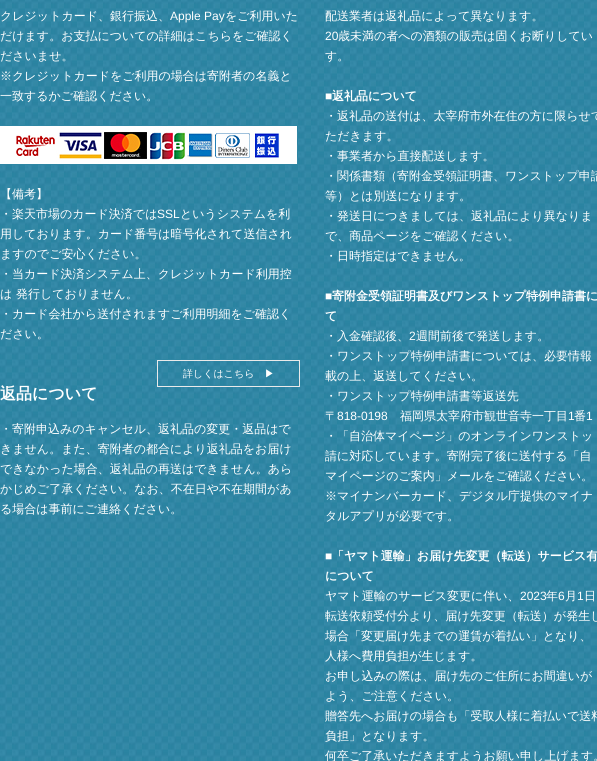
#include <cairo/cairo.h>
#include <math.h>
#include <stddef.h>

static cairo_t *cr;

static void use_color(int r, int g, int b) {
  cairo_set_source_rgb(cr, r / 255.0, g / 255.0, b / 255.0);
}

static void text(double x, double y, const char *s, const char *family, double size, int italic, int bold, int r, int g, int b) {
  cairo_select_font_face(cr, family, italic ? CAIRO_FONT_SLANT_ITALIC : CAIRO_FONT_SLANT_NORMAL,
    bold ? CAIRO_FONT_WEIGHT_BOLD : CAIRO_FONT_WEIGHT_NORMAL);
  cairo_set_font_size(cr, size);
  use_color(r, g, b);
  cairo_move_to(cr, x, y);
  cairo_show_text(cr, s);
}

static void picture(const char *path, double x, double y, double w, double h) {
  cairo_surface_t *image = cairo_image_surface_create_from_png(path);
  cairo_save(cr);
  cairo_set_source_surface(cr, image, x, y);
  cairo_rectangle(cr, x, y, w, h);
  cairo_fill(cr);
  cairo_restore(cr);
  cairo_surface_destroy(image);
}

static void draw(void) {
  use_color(255, 255, 255);
  cairo_paint(cr);
  picture("img_01.png", 0, 0, 597, 761);
  picture("img_02.png", 0, 126, 297, 38);
  cairo_rectangle(cr, 157.5, 360.5, 142, 26);
  use_color(234, 234, 234);
  cairo_set_line_width(cr, 1);
  cairo_stroke(cr);
  text(0, 20, "クレジットカード、銀行振込、", "WenQuanYi Zen Hei Medium", 12, 0, 0, 255, 255, 255);
  text(170, 20, "Apple Pay", "Liberation Sans", 12, 0, 0, 255, 255, 255);
  text(225, 20, "をご利用いた", "WenQuanYi Zen Hei Medium", 12, 0, 0, 255, 255, 255);
  text(0, 40, "だけます。お支払についての詳細はこちらをご確認く", "WenQuanYi Zen Hei Medium", 12, 0, 0, 255, 255, 255);
  text(0, 60, "ださいませ。", "WenQuanYi Zen Hei Medium", 12, 0, 0, 255, 255, 255);
  text(0, 80, "※クレジットカードをご利用の場合は寄附者の名義と", "WenQuanYi Zen Hei Medium", 12, 0, 0, 255, 255, 255);
  text(0, 100, "一致するかご確認ください。", "WenQuanYi Zen Hei Medium", 12, 0, 0, 255, 255, 255);
  text(0, 198, "【備考】", "WenQuanYi Zen Hei Medium", 12, 0, 0, 255, 255, 255);
  text(0, 218, "・楽天市場のカード決済では", "WenQuanYi Zen Hei Medium", 12, 0, 0, 255, 255, 255);
  text(157, 218, "SSL", "Liberation Sans", 12, 0, 0, 255, 255, 255);
  text(180, 218, "というシステムを利", "WenQuanYi Zen Hei Medium", 12, 0, 0, 255, 255, 255);
  text(0, 238, "用しております。カード番号は暗号化されて送信され", "WenQuanYi Zen Hei Medium", 12, 0, 0, 255, 255, 255);
  text(0, 258, "ますのでご安心ください。", "WenQuanYi Zen Hei Medium", 12, 0, 0, 255, 255, 255);
  text(0, 278, "・当カード決済システム上、クレジットカード利用控", "WenQuanYi Zen Hei Medium", 12, 0, 0, 255, 255, 255);
  text(0, 298, "は 発行しておりません。", "WenQuanYi Zen Hei Medium", 12, 0, 0, 255, 255, 255);
  text(0, 318, "・カード会社から送付されますご利用明細をご確認く", "WenQuanYi Zen Hei Medium", 12, 0, 0, 255, 255, 255);
  text(0, 338, "ださい。", "WenQuanYi Zen Hei Medium", 12, 0, 0, 255, 255, 255);
  text(183, 377, "詳しくはこちら　▶", "WenQuanYi Zen Hei Medium", 10, 0, 0, 255, 255, 255);
  text(0, 399, "返品について", "WenQuanYi Zen Hei", 16, 0, 1, 255, 255, 255);
  text(0, 433, "・寄附申込みのキャンセル、返礼品の変更・返品はで", "WenQuanYi Zen Hei Medium", 12, 0, 0, 255, 255, 255);
  text(0, 453, "きません。また、寄附者の都合により返礼品をお届け", "WenQuanYi Zen Hei Medium", 12, 0, 0, 255, 255, 255);
  text(0, 473, "できなかった場合、返礼品の再送はできません。あら", "WenQuanYi Zen Hei Medium", 12, 0, 0, 255, 255, 255);
  text(0, 493, "かじめご了承ください。なお、不在日や不在期間があ", "WenQuanYi Zen Hei Medium", 12, 0, 0, 255, 255, 255);
  text(0, 513, "る場合は事前にご連絡ください。", "WenQuanYi Zen Hei Medium", 12, 0, 0, 255, 255, 255);
  text(325, 20, "配送業者は返礼品によって異なります。", "WenQuanYi Zen Hei Medium", 12, 0, 0, 255, 255, 255);
  text(325, 40, "20", "Liberation Sans", 12, 0, 0, 255, 255, 255);
  text(338, 40, "歳未満の者への酒類の販売は固くお断りしてい", "WenQuanYi Zen Hei Medium", 12, 0, 0, 255, 255, 255);
  text(325, 60, "す。", "WenQuanYi Zen Hei Medium", 12, 0, 0, 255, 255, 255);
  text(325, 100, "■", "Liberation Sans", 12, 0, 1, 255, 255, 255);
  text(332, 100, "返礼品について", "WenQuanYi Zen Hei", 12, 0, 1, 255, 255, 255);
  text(325, 120, "・返礼品の送付は、太宰府市外在住の方に限らせて", "WenQuanYi Zen Hei Medium", 12, 0, 0, 255, 255, 255);
  text(325, 140, "ただきます。", "WenQuanYi Zen Hei Medium", 12, 0, 0, 255, 255, 255);
  text(325, 160, "・事業者から直接配送します。", "WenQuanYi Zen Hei Medium", 12, 0, 0, 255, 255, 255);
  text(325, 180, "・関係書類（寄附金受領証明書、ワンストップ申請", "WenQuanYi Zen Hei Medium", 12, 0, 0, 255, 255, 255);
  text(325, 200, "等）とは別送になります。", "WenQuanYi Zen Hei Medium", 12, 0, 0, 255, 255, 255);
  text(325, 220, "・発送日につきましては、返礼品により異なりま", "WenQuanYi Zen Hei Medium", 12, 0, 0, 255, 255, 255);
  text(325, 240, "で、商品ページをご確認ください。", "WenQuanYi Zen Hei Medium", 12, 0, 0, 255, 255, 255);
  text(325, 260, "・日時指定はできません。", "WenQuanYi Zen Hei Medium", 12, 0, 0, 255, 255, 255);
  text(325, 300, "■", "Liberation Sans", 12, 0, 1, 255, 255, 255);
  text(332, 300, "寄附金受領証明書及びワンストップ特例申請書に", "WenQuanYi Zen Hei", 12, 0, 1, 255, 255, 255);
  text(325, 320, "て", "WenQuanYi Zen Hei", 12, 0, 1, 255, 255, 255);
  text(325, 340, "・入金確認後、", "WenQuanYi Zen Hei Medium", 12, 0, 0, 255, 255, 255);
  text(409, 340, "2", "Liberation Sans", 12, 0, 0, 255, 255, 255);
  text(416, 340, "週間前後で発送します。", "WenQuanYi Zen Hei Medium", 12, 0, 0, 255, 255, 255);
  text(325, 360, "・ワンストップ特例申請書については、必要情報", "WenQuanYi Zen Hei Medium", 12, 0, 0, 255, 255, 255);
  text(325, 380, "載の上、返送してください。", "WenQuanYi Zen Hei Medium", 12, 0, 0, 255, 255, 255);
  text(325, 400, "・ワンストップ特例申請書等返送先", "WenQuanYi Zen Hei Medium", 12, 0, 0, 255, 255, 255);
  text(325, 420, "〒", "WenQuanYi Zen Hei Medium", 12, 0, 0, 255, 255, 255);
  text(337, 420, "818-0198", "Liberation Sans", 12, 0, 0, 255, 255, 255);
  text(400, 420, "福岡県太宰府市観世音寺一丁目", "WenQuanYi Zen Hei Medium", 12, 0, 0, 255, 255, 255);
  text(568, 420, "1", "Liberation Sans", 12, 0, 0, 255, 255, 255);
  text(574, 420, "番", "WenQuanYi Zen Hei Medium", 12, 0, 0, 255, 255, 255);
  text(586, 420, "1", "Liberation Sans", 12, 0, 0, 255, 255, 255);
  text(325, 440, "・「自治体マイページ」のオンラインワンストッ", "WenQuanYi Zen Hei Medium", 12, 0, 0, 255, 255, 255);
  text(325, 460, "請に対応しています。寄附完了後に送付する「自", "WenQuanYi Zen Hei Medium", 12, 0, 0, 255, 255, 255);
  text(325, 480, "マイページのご案内」メールをご確認ください。", "WenQuanYi Zen Hei Medium", 12, 0, 0, 255, 255, 255);
  text(325, 500, "※マイナンバーカード、デジタル庁提供のマイナ", "WenQuanYi Zen Hei Medium", 12, 0, 0, 255, 255, 255);
  text(325, 520, "タルアプリが必要です。", "WenQuanYi Zen Hei Medium", 12, 0, 0, 255, 255, 255);
  text(325, 560, "■", "Liberation Sans", 12, 0, 1, 255, 255, 255);
  text(332, 560, "「ヤマト運輸」お届け先変更（転送）サービス有", "WenQuanYi Zen Hei", 12, 0, 1, 255, 255, 255);
  text(325, 580, "について", "WenQuanYi Zen Hei", 12, 0, 1, 255, 255, 255);
  text(325, 600, "ヤマト運輸のサービス変更に伴い、", "WenQuanYi Zen Hei Medium", 12, 0, 0, 255, 255, 255);
  text(520, 600, "2023", "Liberation Sans", 12, 0, 0, 255, 255, 255);
  text(546, 600, "年", "WenQuanYi Zen Hei Medium", 12, 0, 0, 255, 255, 255);
  text(558, 600, "6", "Liberation Sans", 12, 0, 0, 255, 255, 255);
  text(565, 600, "月", "WenQuanYi Zen Hei Medium", 12, 0, 0, 255, 255, 255);
  text(577, 600, "1", "Liberation Sans", 12, 0, 0, 255, 255, 255);
  text(584, 600, "日", "WenQuanYi Zen Hei Medium", 12, 0, 0, 255, 255, 255);
  text(325, 620, "転送依頼受付分より、届け先変更（転送）が発生し", "WenQuanYi Zen Hei Medium", 12, 0, 0, 255, 255, 255);
  text(325, 640, "場合「変更届け先までの運賃が着払い」となり、", "WenQuanYi Zen Hei Medium", 12, 0, 0, 255, 255, 255);
  text(325, 660, "人様へ費用負担が生じます。", "WenQuanYi Zen Hei Medium", 12, 0, 0, 255, 255, 255);
  text(325, 680, "お申し込みの際は、届け先のご住所にお間違いが", "WenQuanYi Zen Hei Medium", 12, 0, 0, 255, 255, 255);
  text(325, 700, "よう、ご注意ください。", "WenQuanYi Zen Hei Medium", 12, 0, 0, 255, 255, 255);
  text(325, 720, "贈答先へお届けの場合も「受取人様に着払いで送料", "WenQuanYi Zen Hei Medium", 12, 0, 0, 255, 255, 255);
  text(325, 740, "負担」となります。", "WenQuanYi Zen Hei Medium", 12, 0, 0, 255, 255, 255);
  text(325, 760, "何卒ご了承いただきますようお願い申し上げます。", "WenQuanYi Zen Hei Medium", 12, 0, 0, 255, 255, 255);
}

int main(void) {
  cairo_surface_t *surface = cairo_image_surface_create(CAIRO_FORMAT_RGB24, 597, 761);
  cr = cairo_create(surface);
  cairo_font_options_t *options = cairo_font_options_create();
  cairo_font_options_set_hint_metrics(options, CAIRO_HINT_METRICS_OFF);
  cairo_font_options_set_hint_style(options, CAIRO_HINT_STYLE_NONE);
  cairo_set_font_options(cr, options);
  cairo_set_miter_limit(cr, 4);
  draw();
  cairo_surface_write_to_png(surface, "out.png");
  cairo_font_options_destroy(options);
  cairo_destroy(cr);
  cairo_surface_destroy(surface);
  return 0;
}
